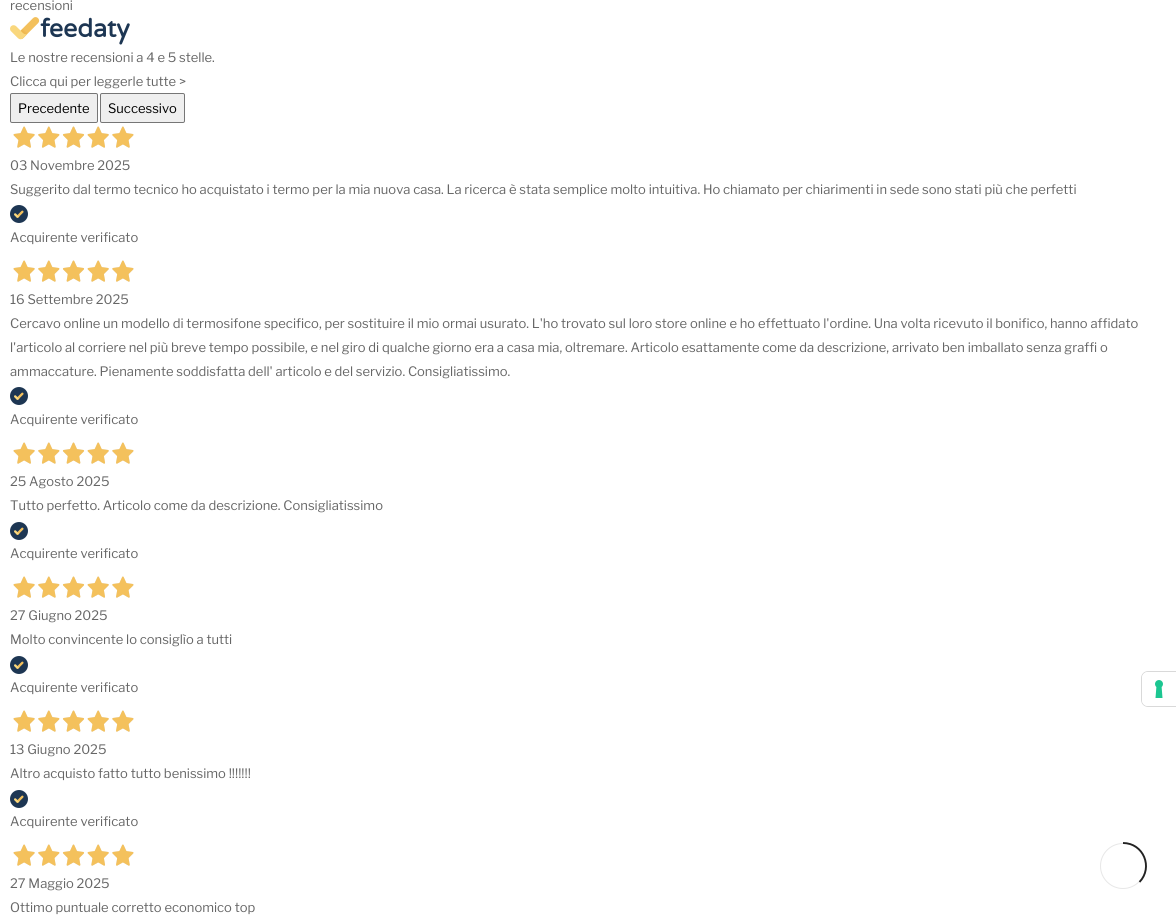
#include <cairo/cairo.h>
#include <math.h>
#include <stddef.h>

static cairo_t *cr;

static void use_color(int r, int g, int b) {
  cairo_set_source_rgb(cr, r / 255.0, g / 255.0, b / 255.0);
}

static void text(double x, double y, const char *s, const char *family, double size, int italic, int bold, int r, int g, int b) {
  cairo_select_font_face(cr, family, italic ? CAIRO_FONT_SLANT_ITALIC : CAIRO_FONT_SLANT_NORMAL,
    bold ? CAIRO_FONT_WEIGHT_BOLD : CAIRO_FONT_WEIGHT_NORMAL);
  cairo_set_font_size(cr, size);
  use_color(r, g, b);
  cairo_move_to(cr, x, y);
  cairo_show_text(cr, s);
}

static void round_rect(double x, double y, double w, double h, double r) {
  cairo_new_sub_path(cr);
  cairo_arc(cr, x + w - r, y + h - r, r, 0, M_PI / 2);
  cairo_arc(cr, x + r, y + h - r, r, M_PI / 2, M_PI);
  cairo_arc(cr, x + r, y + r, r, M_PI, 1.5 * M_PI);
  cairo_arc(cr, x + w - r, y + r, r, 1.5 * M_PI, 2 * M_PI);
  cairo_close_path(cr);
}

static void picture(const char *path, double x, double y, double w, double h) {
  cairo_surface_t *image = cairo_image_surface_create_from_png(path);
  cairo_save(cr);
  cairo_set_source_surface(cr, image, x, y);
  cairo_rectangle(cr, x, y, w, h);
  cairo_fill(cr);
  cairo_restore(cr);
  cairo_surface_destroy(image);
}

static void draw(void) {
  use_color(255, 255, 255);
  cairo_paint(cr);
  picture("img_01.png", 10, 17, 120, 28);
  use_color(239, 239, 239);
  round_rect(10.5, 93.5, 87, 29, 1.5);
  cairo_fill_preserve(cr);
  use_color(118, 118, 118);
  cairo_set_line_width(cr, 1);
  cairo_stroke(cr);
  use_color(239, 239, 239);
  round_rect(100.5, 93.5, 84, 29, 1.5);
  cairo_fill_preserve(cr);
  use_color(118, 118, 118);
  cairo_stroke(cr);
  picture("img_02.png", 13, 126, 121, 22);
  picture("img_03.png", 10, 205, 18, 18);
  picture("img_02.png", 13, 260, 121, 22);
  picture("img_03.png", 10, 387, 18, 18);
  picture("img_02.png", 13, 442, 121, 22);
  picture("img_03.png", 10, 522, 18, 18);
  picture("img_02.png", 13, 576, 121, 22);
  picture("img_03.png", 10, 656, 18, 18);
  picture("img_02.png", 13, 710, 121, 22);
  picture("img_03.png", 10, 790, 18, 18);
  picture("img_02.png", 13, 844, 121, 22);
  cairo_new_path(cr);
  cairo_move_to(cr, 1148, 671.5);
  cairo_line_to(cr, 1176.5, 671.5);
  cairo_line_to(cr, 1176.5, 706.5);
  cairo_line_to(cr, 1148, 706.5);
  cairo_curve_to(cr, 1144.5, 706.5, 1141.5, 703.5, 1141.5, 700);
  cairo_line_to(cr, 1141.5, 678);
  cairo_curve_to(cr, 1141.5, 674.5, 1144.5, 671.5, 1148, 671.5);
  cairo_close_path(cr);
  use_color(217, 217, 217);
  cairo_stroke(cr);
  use_color(255, 255, 255);
  cairo_new_path(cr);
  cairo_move_to(cr, 1148, 672);
  cairo_line_to(cr, 1176, 672);
  cairo_line_to(cr, 1176, 706);
  cairo_line_to(cr, 1148, 706);
  cairo_curve_to(cr, 1144.5, 706, 1142, 703.5, 1142, 700);
  cairo_line_to(cr, 1142, 678);
  cairo_curve_to(cr, 1142, 674.5, 1144.5, 672, 1148, 672);
  cairo_close_path(cr);
  cairo_fill(cr);
  picture("img_04.png", 1155, 680, 8, 18);
  cairo_arc(cr, 1123, 866, 22.5, 0, 2 * M_PI);
  use_color(231, 231, 231);
  cairo_stroke(cr);
  cairo_new_path(cr);
  cairo_move_to(cr, 1123, 843);
  cairo_curve_to(cr, 1143.5, 843, 1153.5, 867.5, 1139.5, 882);
  use_color(34, 34, 34);
  cairo_set_line_width(cr, 1.9);
  cairo_stroke(cr);
  text(10, 10, "recensioni", "Libre Franklin", 13, 0, 0, 102, 102, 102);
  text(10, 62, "Le nostre recensioni a 4 e 5 stelle.", "Libre Franklin", 13, 0, 0, 102, 102, 102);
  text(10, 86, "Clicca qui per leggerle tutte >", "Libre Franklin", 13, 0, 0, 102, 102, 102);
  text(18, 113, "Precedente", "Libre Franklin", 13, 0, 0, 0, 0, 0);
  text(108, 113, "Successivo", "Libre Franklin", 13, 0, 0, 0, 0, 0);
  text(10, 170, "03 Novembre 2025", "Libre Franklin", 13, 0, 0, 102, 102, 102);
  text(10, 194, "Suggerito dal termo tecnico ho acquistato i termo per la mia nuova casa. La ricerca è stata semplice molto intuitiva. Ho chiamato per chiarimenti in sede sono stati più che perfetti", "Libre Franklin", 13, 0, 0, 102, 102, 102);
  text(10, 242, "Acquirente verificato", "Libre Franklin", 13, 0, 0, 102, 102, 102);
  text(10, 304, "16 Settembre 2025", "Libre Franklin", 13, 0, 0, 102, 102, 102);
  text(10, 328, "Cercavo online un modello di termosifone specifico, per sostituire il mio ormai usurato. L'ho trovato sul loro store online e ho effettuato l'ordine. Una volta ricevuto il bonifico, hanno affidato", "Libre Franklin", 13, 0, 0, 102, 102, 102);
  text(10, 352, "l'articolo al corriere nel più breve tempo possibile, e nel giro di qualche giorno era a casa mia, oltremare. Articolo esattamente come da descrizione, arrivato ben imballato senza graffi o", "Libre Franklin", 13, 0, 0, 102, 102, 102);
  text(10, 376, "ammaccature. Pienamente soddisfatta dell' articolo e del servizio. Consigliatissimo.", "Libre Franklin", 13, 0, 0, 102, 102, 102);
  text(10, 424, "Acquirente verificato", "Libre Franklin", 13, 0, 0, 102, 102, 102);
  text(10, 486, "25 Agosto 2025", "Libre Franklin", 13, 0, 0, 102, 102, 102);
  text(10, 510, "Tutto perfetto. Articolo come da descrizione. Consigliatissimo", "Libre Franklin", 13, 0, 0, 102, 102, 102);
  text(10, 558, "Acquirente verificato", "Libre Franklin", 13, 0, 0, 102, 102, 102);
  text(10, 620, "27 Giugno 2025", "Libre Franklin", 13, 0, 0, 102, 102, 102);
  text(10, 644, "Molto convincente lo consiglìo a tutti", "Libre Franklin", 13, 0, 0, 102, 102, 102);
  text(10, 692, "Acquirente verificato", "Libre Franklin", 13, 0, 0, 102, 102, 102);
  text(10, 754, "13 Giugno 2025", "Libre Franklin", 13, 0, 0, 102, 102, 102);
  text(10, 778, "Altro acquisto fatto tutto benissimo !!!!!!!", "Libre Franklin", 13, 0, 0, 102, 102, 102);
  text(10, 826, "Acquirente verificato", "Libre Franklin", 13, 0, 0, 102, 102, 102);
  text(10, 888, "27 Maggio 2025", "Libre Franklin", 13, 0, 0, 102, 102, 102);
  text(10, 912, "Ottimo puntuale corretto economico top", "Libre Franklin", 13, 0, 0, 102, 102, 102);
}

int main(void) {
  cairo_surface_t *surface = cairo_image_surface_create(CAIRO_FORMAT_RGB24, 1176, 919);
  cr = cairo_create(surface);
  cairo_font_options_t *options = cairo_font_options_create();
  cairo_font_options_set_hint_metrics(options, CAIRO_HINT_METRICS_OFF);
  cairo_font_options_set_hint_style(options, CAIRO_HINT_STYLE_NONE);
  cairo_set_font_options(cr, options);
  cairo_set_miter_limit(cr, 4);
  draw();
  cairo_surface_write_to_png(surface, "out.png");
  cairo_font_options_destroy(options);
  cairo_destroy(cr);
  cairo_surface_destroy(surface);
  return 0;
}
